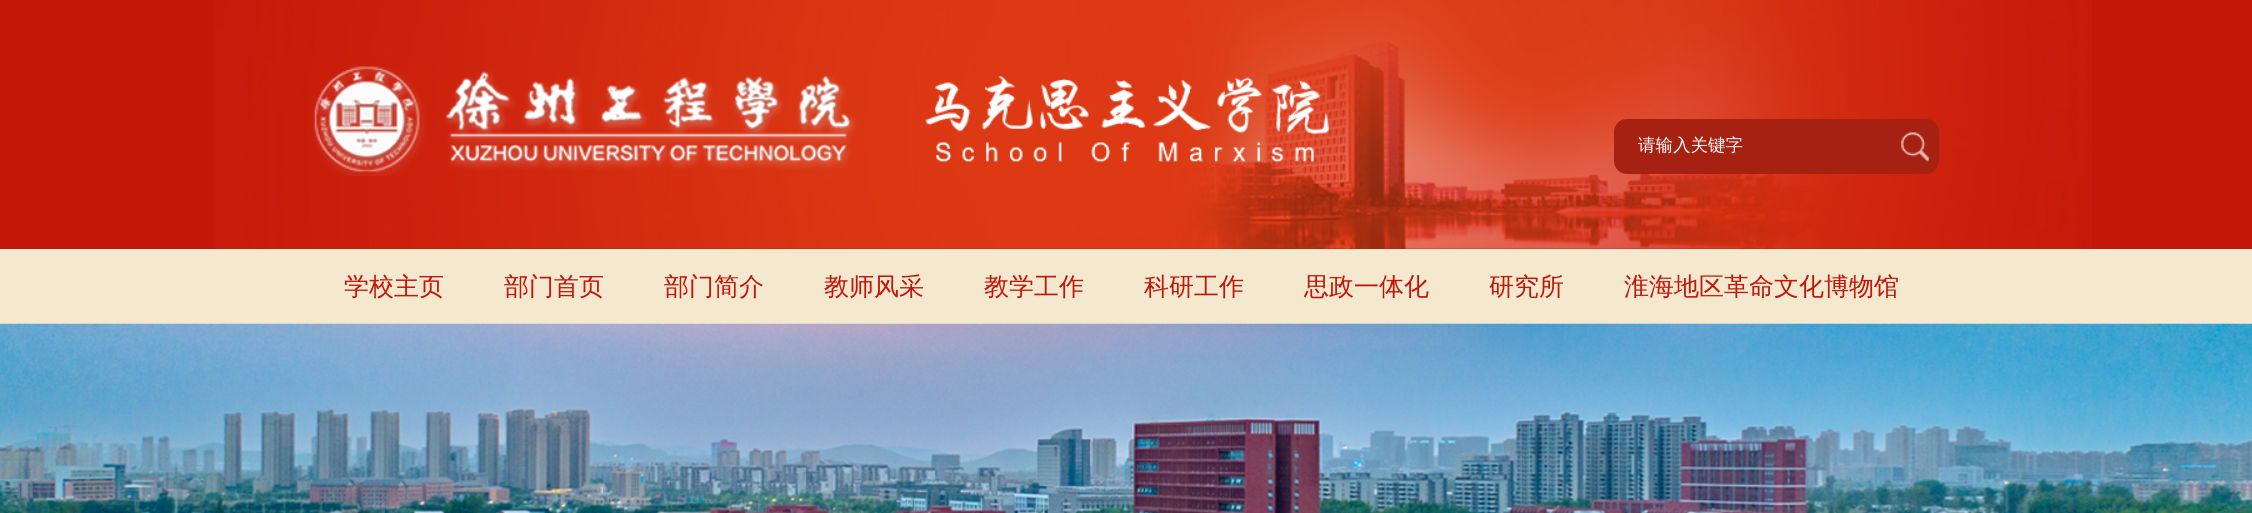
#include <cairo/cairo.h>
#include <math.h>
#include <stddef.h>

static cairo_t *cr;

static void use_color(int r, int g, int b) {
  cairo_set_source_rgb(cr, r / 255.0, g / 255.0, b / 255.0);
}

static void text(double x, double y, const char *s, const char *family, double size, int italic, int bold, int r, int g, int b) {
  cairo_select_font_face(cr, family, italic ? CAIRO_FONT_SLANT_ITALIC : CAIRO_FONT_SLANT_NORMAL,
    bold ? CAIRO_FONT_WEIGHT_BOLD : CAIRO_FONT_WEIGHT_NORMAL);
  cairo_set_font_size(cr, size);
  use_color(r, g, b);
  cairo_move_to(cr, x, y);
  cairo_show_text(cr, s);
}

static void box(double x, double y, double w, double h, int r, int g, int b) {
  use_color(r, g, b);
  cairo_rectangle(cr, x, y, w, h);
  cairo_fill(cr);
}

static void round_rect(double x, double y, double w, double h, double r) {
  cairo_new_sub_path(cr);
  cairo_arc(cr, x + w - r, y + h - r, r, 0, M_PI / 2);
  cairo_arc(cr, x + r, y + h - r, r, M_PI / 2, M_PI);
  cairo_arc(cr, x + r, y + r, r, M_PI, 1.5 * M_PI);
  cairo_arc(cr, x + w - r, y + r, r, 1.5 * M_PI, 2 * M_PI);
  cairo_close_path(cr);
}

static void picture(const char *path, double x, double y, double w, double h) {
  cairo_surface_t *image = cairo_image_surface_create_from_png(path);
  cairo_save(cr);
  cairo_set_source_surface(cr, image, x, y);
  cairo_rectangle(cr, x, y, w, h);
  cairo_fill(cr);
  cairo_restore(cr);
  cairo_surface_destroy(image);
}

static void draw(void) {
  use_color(196, 23, 9);
  cairo_paint(cr);
  picture("img_01.png", 213, 0, 1879, 249);
  picture("img_02.png", 313, 66, 1016, 110);
  use_color(167, 33, 18);
  round_rect(1614, 119, 325, 55, 13);
  cairo_fill(cr);
  picture("img_03.png", 1901, 132, 28, 30);
  box(0, 249, 2252, 75, 244, 232, 206);
  picture("img_04.png", 0, 323, 2252, 190);
  text(1638, 151, "请输入关键字", "WenQuanYi Zen Hei Medium", 17.5, 0, 0, 255, 255, 255);
  text(344, 295, "学校主页", "WenQuanYi Zen Hei Medium", 25, 0, 0, 194, 20, 8);
  text(504, 295, "部门首页", "WenQuanYi Zen Hei Medium", 25, 0, 0, 194, 20, 8);
  text(664, 295, "部门简介", "WenQuanYi Zen Hei Medium", 25, 0, 0, 194, 20, 8);
  text(824, 295, "教师风采", "WenQuanYi Zen Hei Medium", 25, 0, 0, 194, 20, 8);
  text(984, 295, "教学工作", "WenQuanYi Zen Hei Medium", 25, 0, 0, 194, 20, 8);
  text(1144, 295, "科研工作", "WenQuanYi Zen Hei Medium", 25, 0, 0, 194, 20, 8);
  text(1304, 295, "思政一体化", "WenQuanYi Zen Hei Medium", 25, 0, 0, 194, 20, 8);
  text(1489, 295, "研究所", "WenQuanYi Zen Hei Medium", 25, 0, 0, 194, 20, 8);
  text(1624, 295, "淮海地区革命文化博物馆", "WenQuanYi Zen Hei Medium", 25, 0, 0, 194, 20, 8);
}

int main(void) {
  cairo_surface_t *surface = cairo_image_surface_create(CAIRO_FORMAT_RGB24, 2252, 513);
  cr = cairo_create(surface);
  cairo_font_options_t *options = cairo_font_options_create();
  cairo_font_options_set_hint_metrics(options, CAIRO_HINT_METRICS_OFF);
  cairo_font_options_set_hint_style(options, CAIRO_HINT_STYLE_NONE);
  cairo_set_font_options(cr, options);
  cairo_set_miter_limit(cr, 4);
  draw();
  cairo_surface_write_to_png(surface, "out.png");
  cairo_font_options_destroy(options);
  cairo_destroy(cr);
  cairo_surface_destroy(surface);
  return 0;
}
